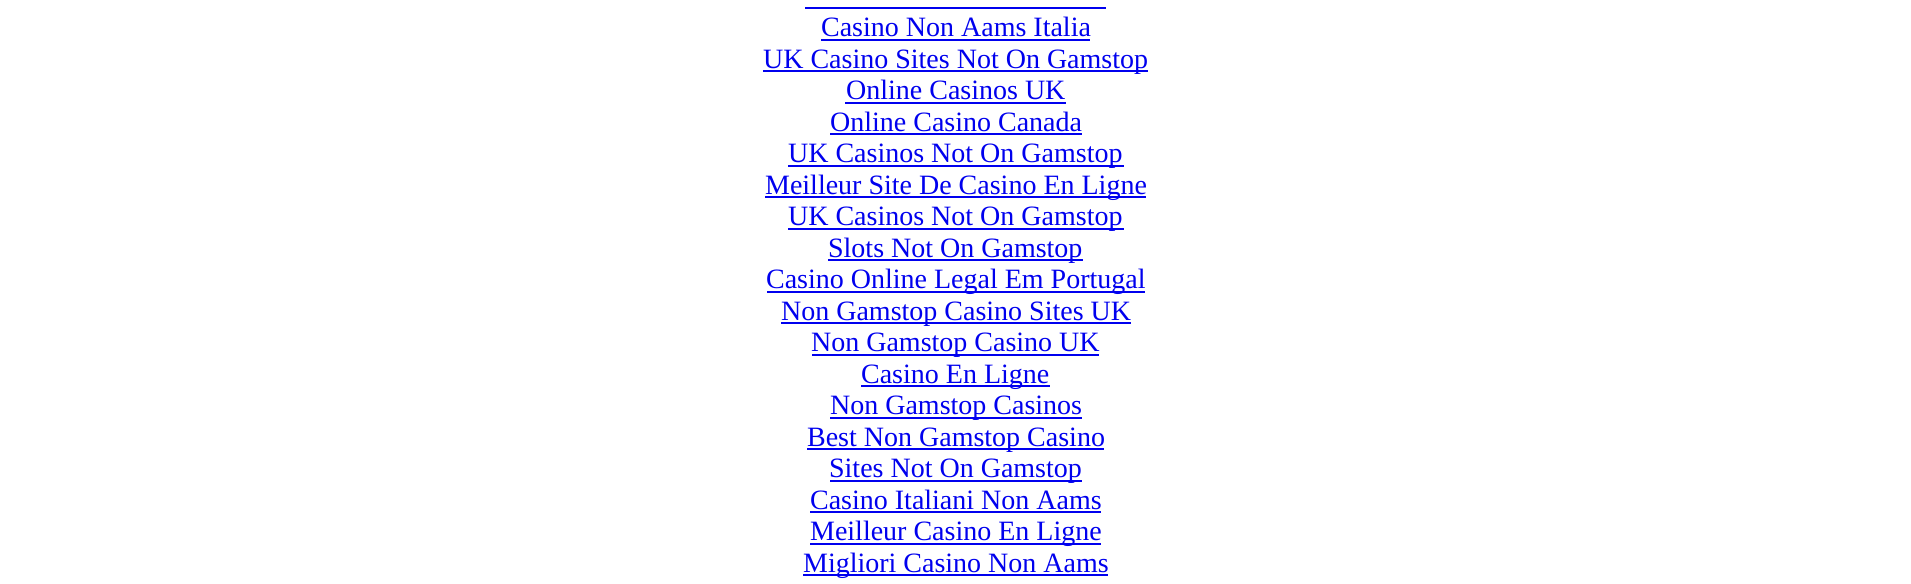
#include <cairo/cairo.h>
#include <math.h>
#include <stddef.h>

static cairo_t *cr;

static void use_color(int r, int g, int b) {
  cairo_set_source_rgb(cr, r / 255.0, g / 255.0, b / 255.0);
}

static void text(double x, double y, const char *s, const char *family, double size, int italic, int bold, int r, int g, int b) {
  cairo_select_font_face(cr, family, italic ? CAIRO_FONT_SLANT_ITALIC : CAIRO_FONT_SLANT_NORMAL,
    bold ? CAIRO_FONT_WEIGHT_BOLD : CAIRO_FONT_WEIGHT_NORMAL);
  cairo_set_font_size(cr, size);
  use_color(r, g, b);
  cairo_move_to(cr, x, y);
  cairo_show_text(cr, s);
}

static void box(double x, double y, double w, double h, int r, int g, int b) {
  use_color(r, g, b);
  cairo_rectangle(cr, x, y, w, h);
  cairo_fill(cr);
}

static void draw(void) {
  use_color(255, 255, 255);
  cairo_paint(cr);
  box(805, 7, 301, 2, 0, 0, 238);
  box(821, 39, 269, 2, 0, 0, 238);
  box(763, 70, 385, 2, 0, 0, 238);
  box(845, 102, 221, 2, 0, 0, 238);
  box(830, 133, 252, 2, 0, 0, 238);
  box(788, 165, 336, 2, 0, 0, 238);
  box(765, 196, 381, 2, 0, 0, 238);
  box(788, 228, 336, 2, 0, 0, 238);
  box(828, 259, 255, 2, 0, 0, 238);
  box(767, 291, 378, 2, 0, 0, 238);
  box(781, 322, 350, 2, 0, 0, 238);
  box(812, 354, 287, 2, 0, 0, 238);
  box(861, 385, 189, 2, 0, 0, 238);
  box(830, 417, 252, 2, 0, 0, 238);
  box(807, 448, 297, 2, 0, 0, 238);
  box(830, 480, 252, 2, 0, 0, 238);
  box(810, 511, 291, 2, 0, 0, 238);
  box(810, 543, 291, 2, 0, 0, 238);
  box(803, 574, 305, 2, 0, 0, 238);
  text(821, 36, "Casino Non Aams Italia", "Liberation Serif", 28, 0, 0, 0, 0, 238);
  text(763, 68, "UK Casino Sites Not On Gamstop", "Liberation Serif", 28, 0, 0, 0, 0, 238);
  text(846, 99, "Online Casinos UK", "Liberation Serif", 28, 0, 0, 0, 0, 238);
  text(830, 131, "Online Casino Canada", "Liberation Serif", 28, 0, 0, 0, 0, 238);
  text(788, 162, "UK Casinos Not On Gamstop", "Liberation Serif", 28, 0, 0, 0, 0, 238);
  text(765, 194, "Meilleur Site De Casino En Ligne", "Liberation Serif", 28, 0, 0, 0, 0, 238);
  text(788, 225, "UK Casinos Not On Gamstop", "Liberation Serif", 28, 0, 0, 0, 0, 238);
  text(828, 257, "Slots Not On Gamstop", "Liberation Serif", 28, 0, 0, 0, 0, 238);
  text(766, 288, "Casino Online Legal Em Portugal", "Liberation Serif", 28, 0, 0, 0, 0, 238);
  text(781, 320, "Non Gamstop Casino Sites UK", "Liberation Serif", 28, 0, 0, 0, 0, 238);
  text(811, 351, "Non Gamstop Casino UK", "Liberation Serif", 28, 0, 0, 0, 0, 238);
  text(861, 383, "Casino En Ligne", "Liberation Serif", 28, 0, 0, 0, 0, 238);
  text(830, 414, "Non Gamstop Casinos", "Liberation Serif", 28, 0, 0, 0, 0, 238);
  text(807, 446, "Best Non Gamstop Casino", "Liberation Serif", 28, 0, 0, 0, 0, 238);
  text(829, 477, "Sites Not On Gamstop", "Liberation Serif", 28, 0, 0, 0, 0, 238);
  text(810, 509, "Casino Italiani Non Aams", "Liberation Serif", 28, 0, 0, 0, 0, 238);
  text(810, 540, "Meilleur Casino En Ligne", "Liberation Serif", 28, 0, 0, 0, 0, 238);
  text(803, 572, "Migliori Casino Non Aams", "Liberation Serif", 28, 0, 0, 0, 0, 238);
}

int main(void) {
  cairo_surface_t *surface = cairo_image_surface_create(CAIRO_FORMAT_RGB24, 1911, 584);
  cr = cairo_create(surface);
  cairo_font_options_t *options = cairo_font_options_create();
  cairo_font_options_set_hint_metrics(options, CAIRO_HINT_METRICS_OFF);
  cairo_font_options_set_hint_style(options, CAIRO_HINT_STYLE_NONE);
  cairo_set_font_options(cr, options);
  cairo_set_miter_limit(cr, 4);
  draw();
  cairo_surface_write_to_png(surface, "out.png");
  cairo_font_options_destroy(options);
  cairo_destroy(cr);
  cairo_surface_destroy(surface);
  return 0;
}
